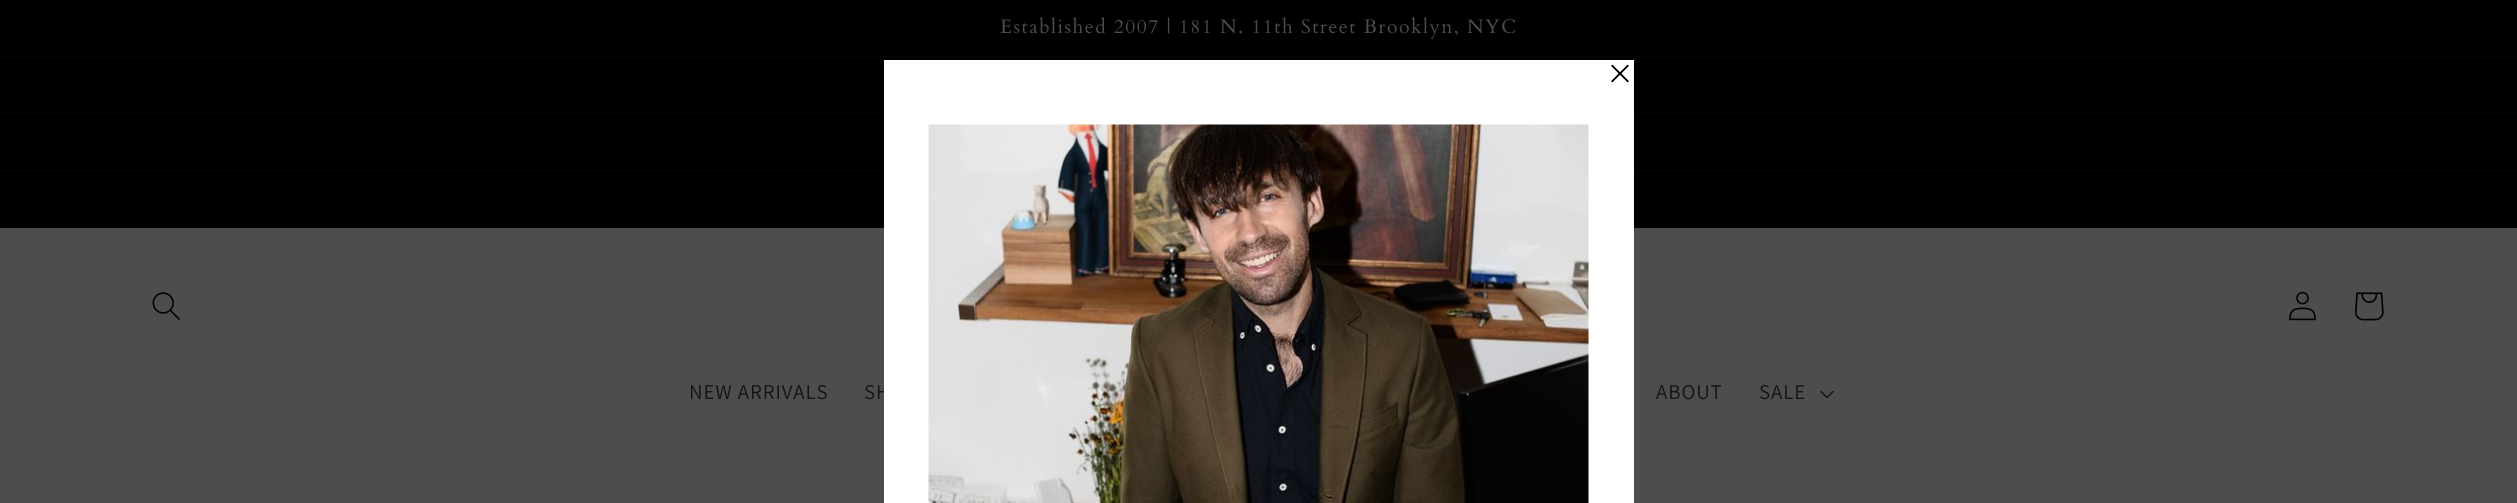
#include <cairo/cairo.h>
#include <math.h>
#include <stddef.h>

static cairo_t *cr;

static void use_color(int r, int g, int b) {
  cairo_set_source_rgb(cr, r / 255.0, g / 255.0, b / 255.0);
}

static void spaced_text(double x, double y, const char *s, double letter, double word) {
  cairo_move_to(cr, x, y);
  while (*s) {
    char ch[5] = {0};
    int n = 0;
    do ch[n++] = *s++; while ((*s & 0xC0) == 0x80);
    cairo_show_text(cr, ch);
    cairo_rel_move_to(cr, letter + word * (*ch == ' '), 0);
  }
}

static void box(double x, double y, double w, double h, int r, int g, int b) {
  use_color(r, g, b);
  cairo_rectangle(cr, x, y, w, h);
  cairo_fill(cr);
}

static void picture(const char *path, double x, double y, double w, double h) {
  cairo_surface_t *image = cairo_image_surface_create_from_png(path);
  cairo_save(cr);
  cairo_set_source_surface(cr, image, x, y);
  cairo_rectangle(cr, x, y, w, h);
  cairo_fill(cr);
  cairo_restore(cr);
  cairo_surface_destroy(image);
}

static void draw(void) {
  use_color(77, 77, 77);
  cairo_paint(cr);
  box(0, 0, 2517, 56, 0, 0, 0);
  box(0, 56, 2517, 1, 6, 6, 6);
  box(0, 57, 2517, 56, 0, 0, 0);
  box(0, 113, 2517, 1, 6, 6, 6);
  box(0, 114, 2517, 56, 0, 0, 0);
  box(0, 170, 2517, 1, 6, 6, 6);
  box(0, 171, 2517, 56, 0, 0, 0);
  box(0, 227, 2517, 1, 6, 6, 6);
  picture("img_02.png", 152, 292, 28, 28);
  picture("img_03.png", 2289, 291, 27, 30);
  picture("img_04.png", 2355, 292, 29, 29);
  picture("img_05.png", 1820, 390, 14, 9);
  cairo_select_font_face(cr, "Cardo", CAIRO_FONT_SLANT_NORMAL, CAIRO_FONT_WEIGHT_NORMAL);
  cairo_set_font_size(cr, 19.5);
  use_color(77, 77, 77);
  spaced_text(1000, 33, "Established 2007 | 181 N. 11th Street Brooklyn, NYC", 1.5, 0);
  cairo_select_font_face(cr, "Assistant", CAIRO_FONT_SLANT_NORMAL, CAIRO_FONT_WEIGHT_NORMAL);
  cairo_set_font_size(cr, 21);
  use_color(19, 19, 19);
  spaced_text(689, 399, "NEW ARRIVALS", 0.9, 0);
  spaced_text(864, 399, "SH", 0.9, 0);
  picture("img_01.png", 884, 60, 750, 443);
  spaced_text(1656, 399, "ABOUT", 0.9, 0);
  spaced_text(1759, 399, "SALE", 0.9, 0);
}

int main(void) {
  cairo_surface_t *surface = cairo_image_surface_create(CAIRO_FORMAT_RGB24, 2517, 503);
  cr = cairo_create(surface);
  cairo_font_options_t *options = cairo_font_options_create();
  cairo_font_options_set_hint_metrics(options, CAIRO_HINT_METRICS_OFF);
  cairo_font_options_set_hint_style(options, CAIRO_HINT_STYLE_NONE);
  cairo_set_font_options(cr, options);
  cairo_set_miter_limit(cr, 4);
  draw();
  cairo_surface_write_to_png(surface, "out.png");
  cairo_font_options_destroy(options);
  cairo_destroy(cr);
  cairo_surface_destroy(surface);
  return 0;
}
